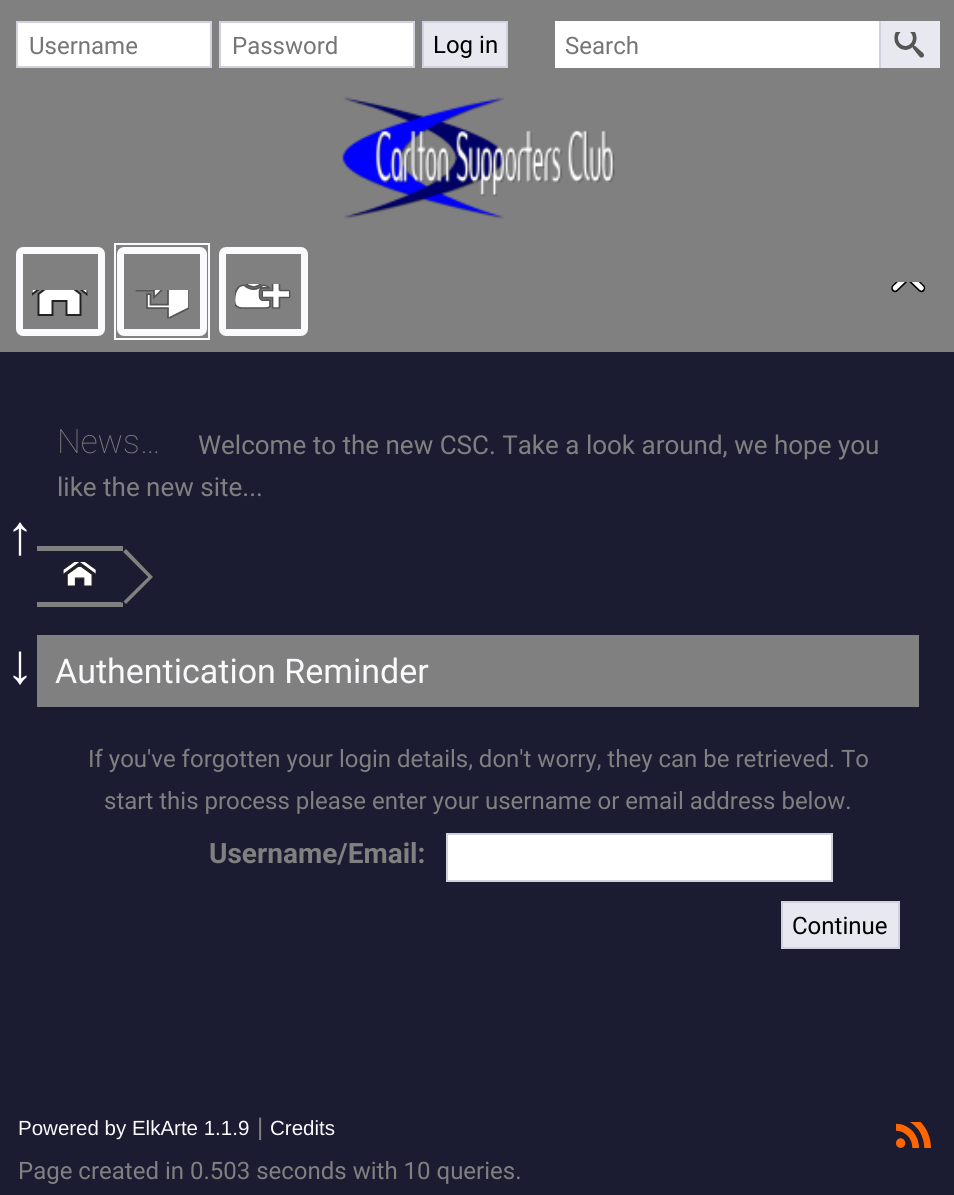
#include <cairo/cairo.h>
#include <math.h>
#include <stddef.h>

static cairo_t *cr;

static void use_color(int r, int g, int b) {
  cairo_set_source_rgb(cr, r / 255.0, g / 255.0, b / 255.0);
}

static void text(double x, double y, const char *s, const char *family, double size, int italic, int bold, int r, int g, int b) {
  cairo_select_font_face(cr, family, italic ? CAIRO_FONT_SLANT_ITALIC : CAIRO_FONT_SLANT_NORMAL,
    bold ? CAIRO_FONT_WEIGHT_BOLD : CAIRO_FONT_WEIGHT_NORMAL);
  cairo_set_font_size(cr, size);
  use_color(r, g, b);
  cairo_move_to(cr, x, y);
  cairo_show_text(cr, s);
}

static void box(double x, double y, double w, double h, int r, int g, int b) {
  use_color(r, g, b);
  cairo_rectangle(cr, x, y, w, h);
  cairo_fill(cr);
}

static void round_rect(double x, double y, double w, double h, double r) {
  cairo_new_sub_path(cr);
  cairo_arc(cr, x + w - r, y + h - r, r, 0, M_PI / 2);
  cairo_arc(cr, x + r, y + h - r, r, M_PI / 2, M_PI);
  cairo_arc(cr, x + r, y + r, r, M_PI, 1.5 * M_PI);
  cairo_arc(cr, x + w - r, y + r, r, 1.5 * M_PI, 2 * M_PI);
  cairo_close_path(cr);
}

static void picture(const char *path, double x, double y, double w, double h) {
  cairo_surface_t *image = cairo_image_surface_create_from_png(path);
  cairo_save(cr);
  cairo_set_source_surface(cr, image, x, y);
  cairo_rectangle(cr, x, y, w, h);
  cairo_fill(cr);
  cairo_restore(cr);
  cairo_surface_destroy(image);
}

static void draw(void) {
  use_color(27, 27, 49);
  cairo_paint(cr);
  box(0, 0, 954, 352, 128, 128, 128);
  use_color(255, 255, 255);
  cairo_rectangle(cr, 17, 22, 194, 45);
  cairo_fill_preserve(cr);
  use_color(209, 209, 224);
  cairo_stroke(cr);
  use_color(255, 255, 255);
  cairo_rectangle(cr, 220, 22, 194, 45);
  cairo_fill_preserve(cr);
  use_color(209, 209, 224);
  cairo_stroke(cr);
  use_color(232, 232, 240);
  cairo_rectangle(cr, 423, 22, 84, 45);
  cairo_fill_preserve(cr);
  use_color(209, 209, 224);
  cairo_stroke(cr);
  box(555, 21, 324, 47, 255, 255, 255);
  box(881, 21, 59, 47, 232, 232, 240);
  box(879, 21, 2, 47, 209, 209, 224);
  picture("img_01.png", 894, 32, 30, 26);
  picture("img_02.png", 342, 97, 273, 122);
  round_rect(19.5, 250.5, 82, 82, 3.5);
  use_color(250, 250, 253);
  cairo_set_line_width(cr, 7);
  cairo_stroke(cr);
  picture("img_03.png", 32, 290, 56, 26);
  cairo_rectangle(cr, 115, 244, 94, 95);
  cairo_set_line_width(cr, 2);
  cairo_stroke(cr);
  round_rect(120.5, 250.5, 83, 82, 3.5);
  cairo_set_line_width(cr, 7);
  cairo_stroke(cr);
  picture("img_04.png", 135, 290, 54, 29);
  round_rect(222.5, 250.5, 82, 82, 3.5);
  cairo_stroke(cr);
  picture("img_05.png", 235, 284, 56, 25);
  picture("img_06.png", 891, 282, 35, 11);
  box(37, 546, 86, 5, 128, 128, 128);
  box(37, 602, 86, 5, 128, 128, 128);
  picture("img_07.png", 63, 562, 33, 25);
  cairo_new_path(cr);
  cairo_move_to(cr, 126, 549);
  cairo_line_to(cr, 123, 552);
  cairo_line_to(cr, 148, 577);
  cairo_line_to(cr, 123, 601);
  cairo_line_to(cr, 126, 604);
  cairo_line_to(cr, 153, 577);
  cairo_close_path(cr);
  cairo_fill(cr);
  use_color(27, 27, 49);
  cairo_new_path(cr);
  cairo_move_to(cr, 122, 551);
  cairo_line_to(cr, 148, 577);
  cairo_line_to(cr, 122, 603);
  cairo_line_to(cr, 96, 577);
  cairo_close_path(cr);
  cairo_fill(cr);
  box(37, 635, 882, 72, 128, 128, 128);
  use_color(255, 255, 255);
  cairo_rectangle(cr, 447, 834, 385, 47);
  cairo_fill_preserve(cr);
  use_color(209, 209, 224);
  cairo_set_line_width(cr, 2);
  cairo_stroke(cr);
  use_color(232, 232, 240);
  cairo_rectangle(cr, 782, 902, 117, 46);
  cairo_fill_preserve(cr);
  use_color(209, 209, 224);
  cairo_stroke(cr);
  picture("img_08.png", 896, 1122, 35, 26);
  text(29, 54, "Username", "Roboto", 24, 0, 0, 117, 117, 117);
  text(232, 54, "Password", "Roboto", 24, 0, 0, 117, 117, 117);
  text(433, 53, "Log in", "Roboto", 24, 0, 0, 0, 0, 0);
  text(565, 54, "Search", "Roboto", 24, 0, 0, 117, 117, 117);
  text(6, 554, "↑", "Liberation Sans", 56, 0, 1, 250, 250, 253);
  text(57, 453, "News", "Roboto Thin", 33.5, 0, 0, 128, 128, 128);
  text(140, 453, "…", "Roboto Thin", 33.5, 0, 0, 128, 128, 128);
  text(198, 454, "Welcome to the new CSC. Take a look around, we hope you", "Roboto", 26, 0, 0, 128, 128, 128);
  text(57, 496, "like the new site...", "Roboto", 26, 0, 0, 128, 128, 128);
  text(55, 683, "Authentication Reminder", "Roboto", 34, 0, 0, 250, 250, 253);
  text(88, 767, "If you've forgotten your login details, don't worry, they can be retrieved. To", "Roboto", 24, 0, 0, 128, 128, 128);
  text(104, 809, "start this process please enter your username or email address below.", "Roboto", 24, 0, 0, 128, 128, 128);
  text(209, 863, "Username/Email:", "Roboto", 28, 0, 1, 128, 128, 128);
  text(792, 934, "Continue", "Roboto", 24, 0, 0, 0, 0, 0);
  text(6, 683, "↓", "Liberation Sans", 56, 0, 1, 250, 250, 253);
  text(18, 1135, "Powered by ElkArte 1.1.9", "Liberation Sans", 20.5, 0, 0, 250, 250, 253);
  text(257, 1135, "|", "Liberation Sans", 24, 0, 0, 128, 128, 128);
  text(270, 1135, "Credits", "Liberation Sans", 20.5, 0, 0, 250, 250, 253);
  text(18, 1179, "Page created in 0.503 seconds with 10 queries.", "Roboto", 24, 0, 0, 128, 128, 128);
}

int main(void) {
  cairo_surface_t *surface = cairo_image_surface_create(CAIRO_FORMAT_RGB24, 954, 1195);
  cr = cairo_create(surface);
  cairo_font_options_t *options = cairo_font_options_create();
  cairo_font_options_set_hint_metrics(options, CAIRO_HINT_METRICS_OFF);
  cairo_font_options_set_hint_style(options, CAIRO_HINT_STYLE_NONE);
  cairo_set_font_options(cr, options);
  cairo_set_miter_limit(cr, 4);
  draw();
  cairo_surface_write_to_png(surface, "out.png");
  cairo_font_options_destroy(options);
  cairo_destroy(cr);
  cairo_surface_destroy(surface);
  return 0;
}
